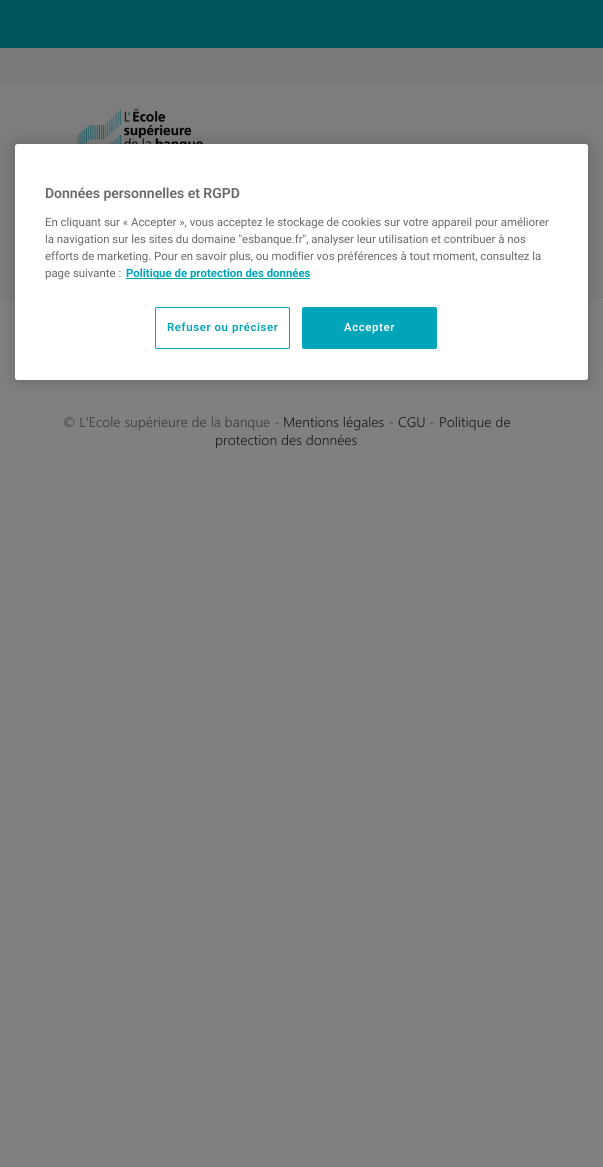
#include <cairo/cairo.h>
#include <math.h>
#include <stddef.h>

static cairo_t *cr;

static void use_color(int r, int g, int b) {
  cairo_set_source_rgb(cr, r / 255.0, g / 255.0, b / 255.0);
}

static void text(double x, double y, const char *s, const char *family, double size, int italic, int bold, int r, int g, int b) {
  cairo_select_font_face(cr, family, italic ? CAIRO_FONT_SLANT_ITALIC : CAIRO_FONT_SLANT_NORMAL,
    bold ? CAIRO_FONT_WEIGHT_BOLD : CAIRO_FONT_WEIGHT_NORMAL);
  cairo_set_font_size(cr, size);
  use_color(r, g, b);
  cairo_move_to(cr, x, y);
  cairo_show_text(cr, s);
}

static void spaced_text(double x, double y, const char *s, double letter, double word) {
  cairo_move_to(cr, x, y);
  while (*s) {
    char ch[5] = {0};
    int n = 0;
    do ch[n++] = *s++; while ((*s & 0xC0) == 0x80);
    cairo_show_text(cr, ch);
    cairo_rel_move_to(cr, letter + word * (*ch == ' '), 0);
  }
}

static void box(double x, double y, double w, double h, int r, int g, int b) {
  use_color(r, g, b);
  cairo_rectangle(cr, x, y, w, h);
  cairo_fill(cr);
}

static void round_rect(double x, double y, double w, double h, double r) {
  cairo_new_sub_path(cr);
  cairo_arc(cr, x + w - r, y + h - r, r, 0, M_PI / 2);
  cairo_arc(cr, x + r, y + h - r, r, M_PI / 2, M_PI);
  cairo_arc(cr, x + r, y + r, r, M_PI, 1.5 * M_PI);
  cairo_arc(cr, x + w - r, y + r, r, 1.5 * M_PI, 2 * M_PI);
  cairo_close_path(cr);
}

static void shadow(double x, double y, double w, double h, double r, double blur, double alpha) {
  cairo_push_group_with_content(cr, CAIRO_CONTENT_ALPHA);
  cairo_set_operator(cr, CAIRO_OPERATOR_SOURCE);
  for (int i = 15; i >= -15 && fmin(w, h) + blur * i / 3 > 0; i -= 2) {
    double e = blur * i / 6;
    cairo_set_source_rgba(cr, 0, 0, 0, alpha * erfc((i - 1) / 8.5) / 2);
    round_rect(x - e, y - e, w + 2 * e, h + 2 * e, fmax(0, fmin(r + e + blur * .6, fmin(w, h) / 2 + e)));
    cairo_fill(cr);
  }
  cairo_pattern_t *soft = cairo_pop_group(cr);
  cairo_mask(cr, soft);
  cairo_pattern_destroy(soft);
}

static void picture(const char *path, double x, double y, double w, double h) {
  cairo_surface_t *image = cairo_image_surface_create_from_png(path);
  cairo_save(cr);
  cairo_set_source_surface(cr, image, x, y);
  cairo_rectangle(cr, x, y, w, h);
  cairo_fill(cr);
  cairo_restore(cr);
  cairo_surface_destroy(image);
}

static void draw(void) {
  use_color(128, 128, 128);
  cairo_paint(cr);
  box(0, 0, 603, 48, 0, 83, 93);
  box(0, 48, 603, 34, 121, 121, 121);
  box(0, 82, 603, 215, 125, 125, 125);
  box(0, 297, 603, 1, 121, 121, 121);
  picture("img_01.png", 77, 109, 126, 35);
  use_color(0, 0, 0);
  shadow(15, 144, 573, 236, 2.5, 9, 0.2);
  use_color(255, 255, 255);
  round_rect(15, 144, 573, 236, 2.5);
  cairo_fill(cr);
  box(126, 278, 184, 1, 0, 165, 186);
  round_rect(155.5, 307.5, 134, 41, 1.5);
  cairo_set_line_width(cr, 1);
  cairo_stroke(cr);
  round_rect(302.5, 307.5, 134, 41, 1.5);
  cairo_fill_preserve(cr);
  cairo_stroke(cr);
  text(45, 198, "Données personnelles et RGPD", "Roboto SemiBold", 14, 0, 0, 105, 105, 105);
  text(45, 226, "En cliquant sur « Accepter », vous acceptez le stockage de cookies sur votre appareil pour améliorer", "Roboto", 11.4, 0, 0, 105, 105, 105);
  text(45, 243, "la navigation sur les sites du domaine \"esbanque.fr\", analyser leur utilisation et contribuer à nos", "Roboto", 11.4, 0, 0, 105, 105, 105);
  text(45, 260, "efforts de marketing. Pour en savoir plus, ou modifier vos préférences à tout moment, consultez la", "Roboto", 11.4, 0, 0, 105, 105, 105);
  text(45, 277, "page suivante :", "Roboto", 11.4, 0, 0, 105, 105, 105);
  text(126, 277, "Politique de protection des données", "Roboto", 11.4, 0, 1, 0, 165, 186);
  cairo_select_font_face(cr, "Roboto SemiBold", CAIRO_FONT_SLANT_NORMAL, CAIRO_FONT_WEIGHT_NORMAL);
  spaced_text(167, 331, "Refuser ou préciser", 0.6, 0);
  use_color(255, 255, 255);
  spaced_text(344, 331, "Accepter", 0.6, 0);
  text(63, 427, "© L'Ecole supérieure de la banque -", "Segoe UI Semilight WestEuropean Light", 14, 0, 0, 59, 59, 59);
  text(283, 427, "Mentions légales", "Segoe UI Semilight WestEuropean Light", 14, 0, 0, 26, 26, 26);
  text(388, 427, "-", "Segoe UI Semilight WestEuropean Light", 14, 0, 0, 59, 59, 59);
  text(398, 427, "CGU", "Segoe UI Semilight WestEuropean Light", 14, 0, 0, 26, 26, 26);
  text(429, 427, "-", "Segoe UI Semilight WestEuropean Light", 14, 0, 0, 59, 59, 59);
  text(439, 427, "Politique de", "Segoe UI Semilight WestEuropean Light", 14, 0, 0, 26, 26, 26);
  text(215, 445, "protection des données", "Segoe UI Semilight WestEuropean Light", 14, 0, 0, 26, 26, 26);
}

int main(void) {
  cairo_surface_t *surface = cairo_image_surface_create(CAIRO_FORMAT_RGB24, 603, 1167);
  cr = cairo_create(surface);
  cairo_font_options_t *options = cairo_font_options_create();
  cairo_font_options_set_hint_metrics(options, CAIRO_HINT_METRICS_OFF);
  cairo_font_options_set_hint_style(options, CAIRO_HINT_STYLE_NONE);
  cairo_set_font_options(cr, options);
  cairo_set_miter_limit(cr, 4);
  draw();
  cairo_surface_write_to_png(surface, "out.png");
  cairo_font_options_destroy(options);
  cairo_destroy(cr);
  cairo_surface_destroy(surface);
  return 0;
}
